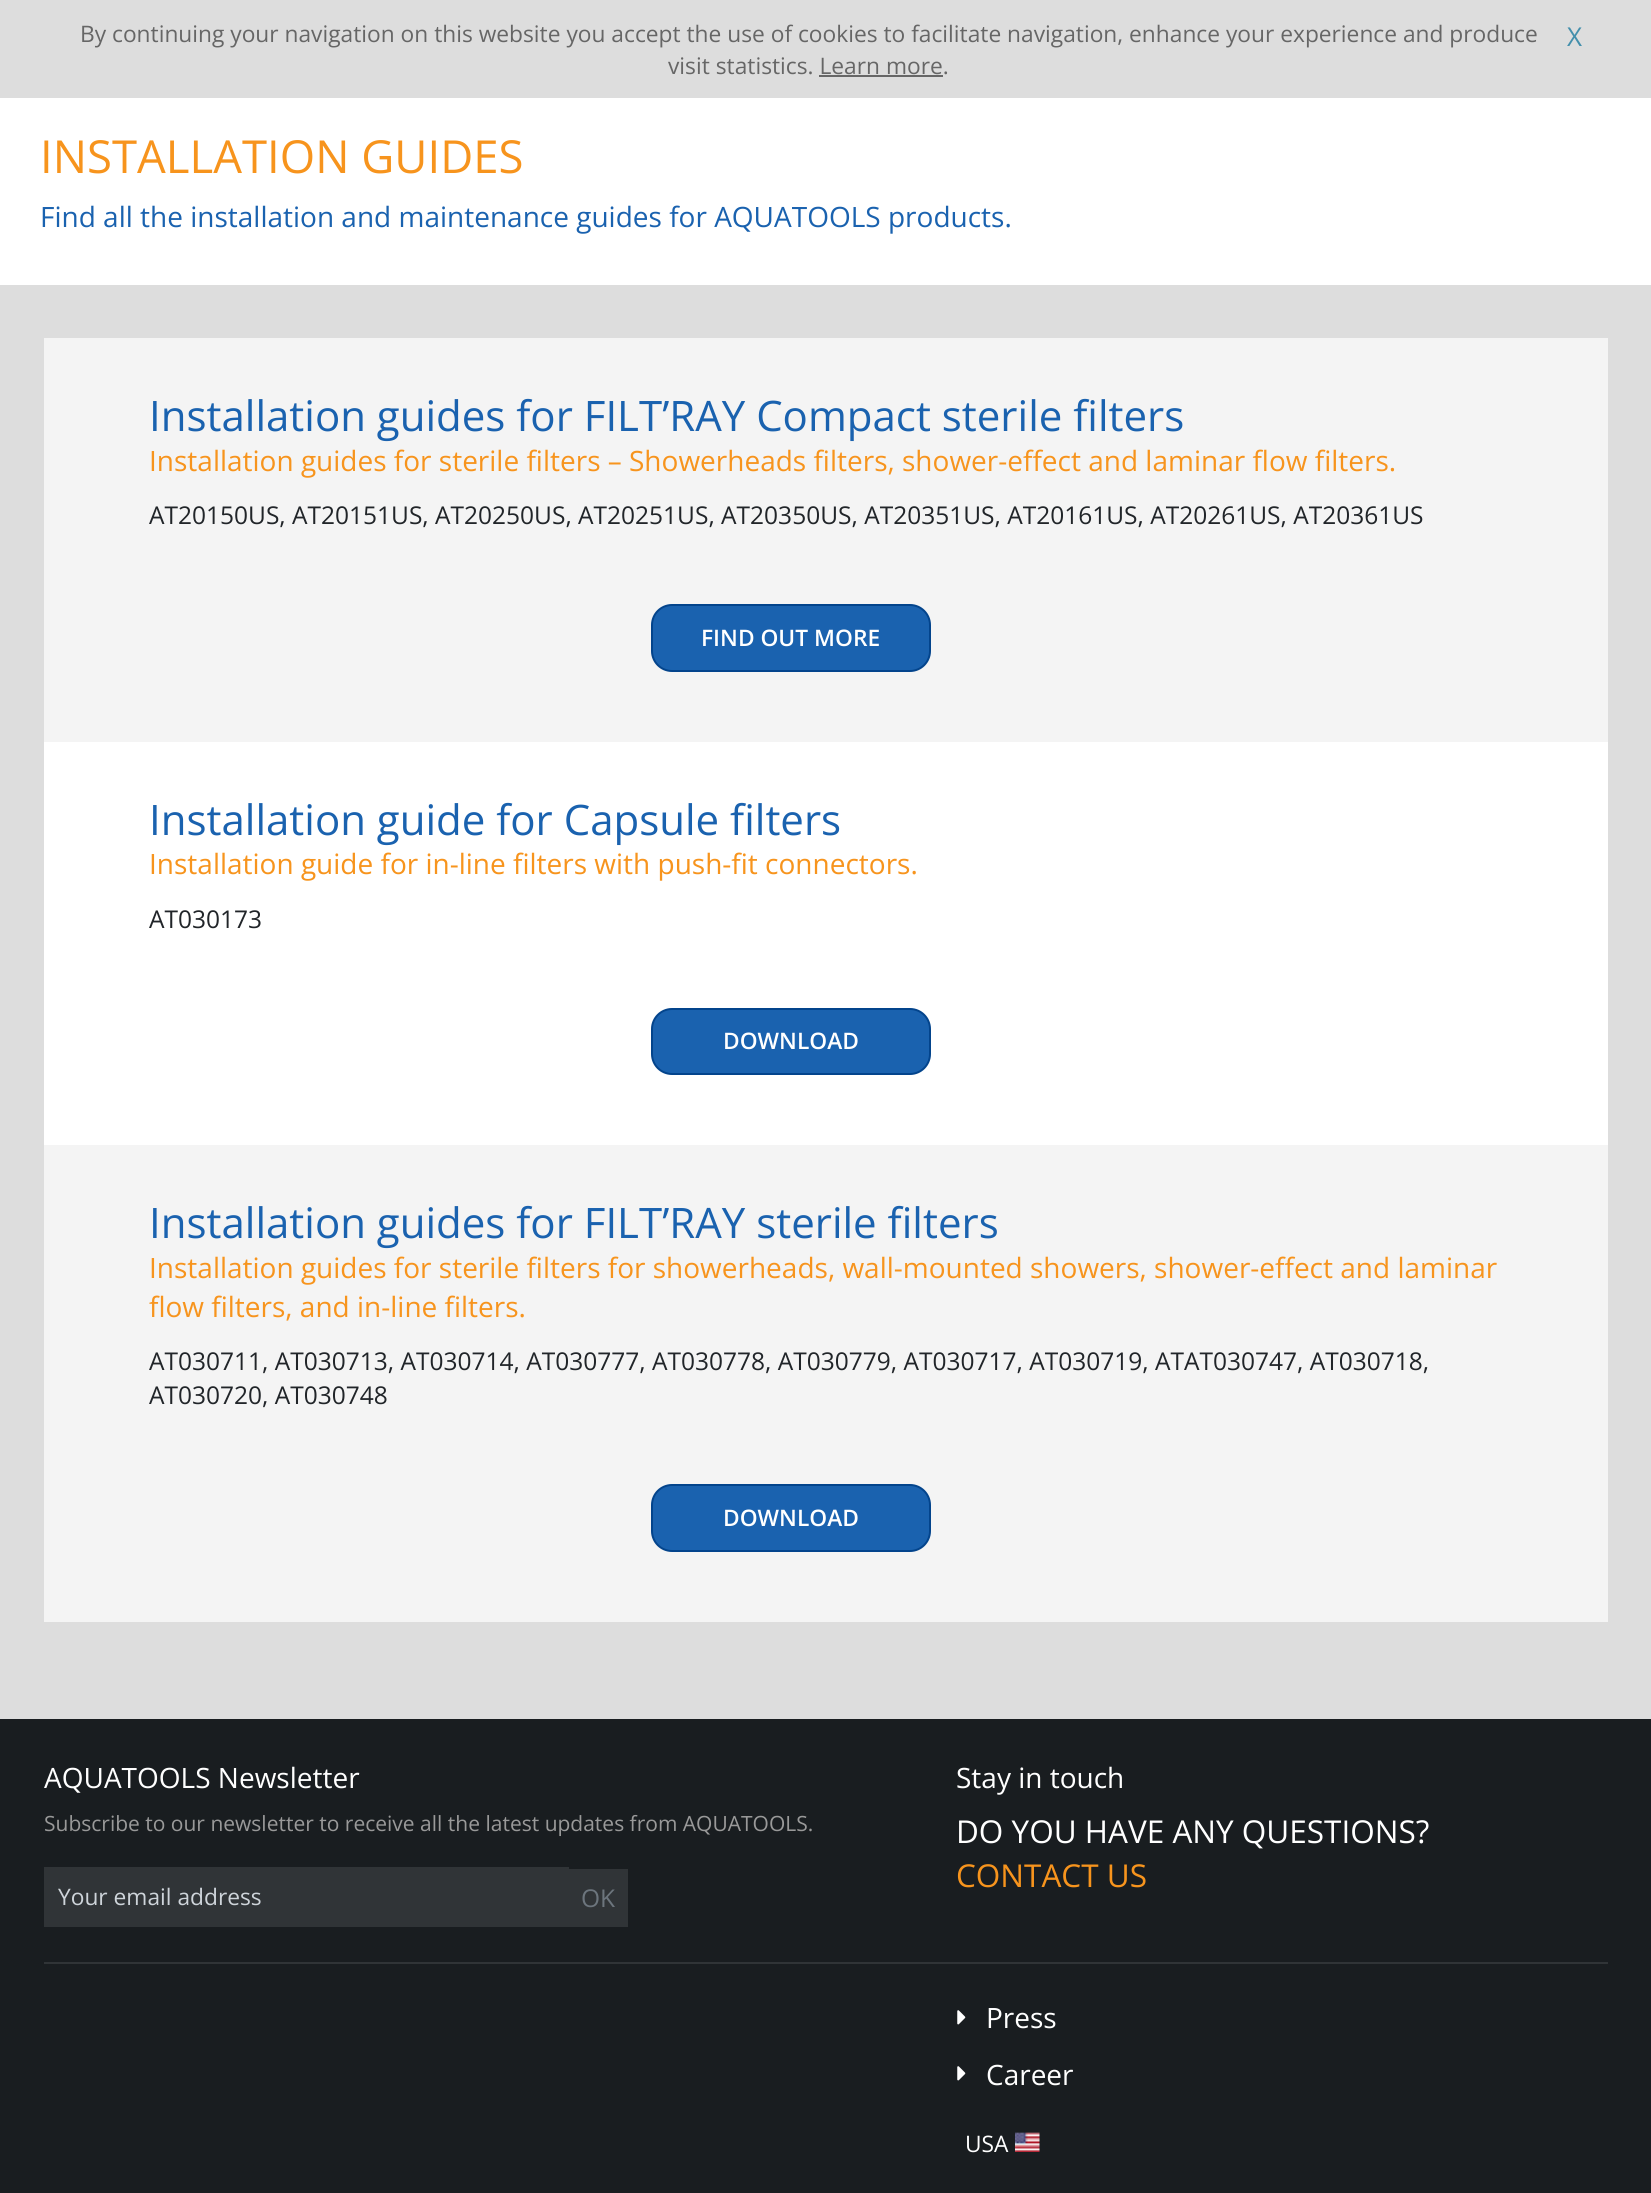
#include <cairo/cairo.h>
#include <math.h>
#include <stddef.h>

static cairo_t *cr;

static void use_color(int r, int g, int b) {
  cairo_set_source_rgb(cr, r / 255.0, g / 255.0, b / 255.0);
}

static void text(double x, double y, const char *s, const char *family, double size, int italic, int bold, int r, int g, int b) {
  cairo_select_font_face(cr, family, italic ? CAIRO_FONT_SLANT_ITALIC : CAIRO_FONT_SLANT_NORMAL,
    bold ? CAIRO_FONT_WEIGHT_BOLD : CAIRO_FONT_WEIGHT_NORMAL);
  cairo_set_font_size(cr, size);
  use_color(r, g, b);
  cairo_move_to(cr, x, y);
  cairo_show_text(cr, s);
}

static void box(double x, double y, double w, double h, int r, int g, int b) {
  use_color(r, g, b);
  cairo_rectangle(cr, x, y, w, h);
  cairo_fill(cr);
}

static void round_rect(double x, double y, double w, double h, double r) {
  cairo_new_sub_path(cr);
  cairo_arc(cr, x + w - r, y + h - r, r, 0, M_PI / 2);
  cairo_arc(cr, x + r, y + h - r, r, M_PI / 2, M_PI);
  cairo_arc(cr, x + r, y + r, r, M_PI, 1.5 * M_PI);
  cairo_arc(cr, x + w - r, y + r, r, 1.5 * M_PI, 2 * M_PI);
  cairo_close_path(cr);
}

static void picture(const char *path, double x, double y, double w, double h) {
  cairo_surface_t *image = cairo_image_surface_create_from_png(path);
  cairo_save(cr);
  cairo_set_source_surface(cr, image, x, y);
  cairo_rectangle(cr, x, y, w, h);
  cairo_fill(cr);
  cairo_restore(cr);
  cairo_surface_destroy(image);
}

static void draw(void) {
  use_color(255, 255, 255);
  cairo_paint(cr);
  box(0, 0, 1651, 98, 221, 221, 221);
  box(819, 75, 124, 2, 102, 102, 102);
  box(0, 285, 1651, 1434, 221, 221, 221);
  box(44, 338, 1564, 1284, 244, 244, 244);
  use_color(26, 98, 175);
  round_rect(652, 605, 278, 66, 20);
  cairo_fill_preserve(cr);
  use_color(3, 68, 140);
  cairo_stroke(cr);
  box(44, 742, 1564, 403, 255, 255, 255);
  use_color(26, 98, 175);
  round_rect(652, 1009, 278, 65, 20);
  cairo_fill_preserve(cr);
  use_color(3, 68, 140);
  cairo_stroke(cr);
  use_color(26, 98, 175);
  round_rect(652, 1485, 278, 66, 20);
  cairo_fill_preserve(cr);
  use_color(3, 68, 140);
  cairo_stroke(cr);
  box(0, 1719, 1651, 474, 25, 29, 32);
  box(44, 1867, 525, 60, 48, 52, 55);
  box(569, 1869, 59, 58, 48, 52, 55);
  box(44, 1962, 1564, 2, 48, 52, 55);
  picture("img_01.png", 957, 2010, 9, 15);
  picture("img_01.png", 957, 2066, 9, 15);
  picture("img_02.png", 1015, 2132, 25, 20);
  text(80, 42, "By continuing your navigation on this website you accept the use of cookies to facilitate navigation, enhance your experience and produce", "Open Sans", 22.75, 0, 0, 102, 102, 102);
  text(668, 74, "visit statistics. Learn more.", "Open Sans", 22.75, 0, 0, 102, 102, 102);
  text(1567, 46, "X", "Open Sans", 26, 0, 0, 67, 143, 172);
  text(40, 173, "INSTALLATION GUIDES", "Open Sans", 45.5, 0, 0, 247, 148, 29);
  text(40, 227, "Find all the installation and maintenance guides for AQUATOOLS products.", "Open Sans", 28, 0, 0, 26, 98, 175);
  text(149, 431, "Installation guides for FILT’RAY Compact sterile filters", "Open Sans", 42, 0, 0, 26, 98, 175);
  text(149, 471, "Installation guides for sterile filters – Showerheads filters, shower-effect and laminar flow filters.", "Open Sans", 28, 0, 0, 247, 148, 29);
  text(149, 524, "AT20150US, AT20151US, AT20250US, AT20251US, AT20350US, AT20351US, AT20161US, AT20261US, AT20361US", "Open Sans", 24.5, 0, 0, 33, 37, 41);
  text(701, 646, "FIND OUT MORE", "Open Sans SemiBold", 22.75, 0, 0, 255, 255, 255);
  text(149, 835, "Installation guide for Capsule filters", "Open Sans", 42, 0, 0, 26, 98, 175);
  text(149, 874, "Installation guide for in-line filters with push-fit connectors.", "Open Sans", 28, 0, 0, 247, 148, 29);
  text(149, 928, "AT030173", "Open Sans", 24.5, 0, 0, 33, 37, 41);
  text(723, 1049, "DOWNLOAD", "Open Sans SemiBold", 22.75, 0, 0, 255, 255, 255);
  text(149, 1238, "Installation guides for FILT’RAY sterile filters", "Open Sans", 42, 0, 0, 26, 98, 175);
  text(149, 1278, "Installation guides for sterile filters for showerheads, wall-mounted showers, shower-effect and laminar", "Open Sans", 28, 0, 0, 247, 148, 29);
  text(149, 1317, "flow filters, and in-line filters.", "Open Sans", 28, 0, 0, 247, 148, 29);
  text(149, 1370, "AT030711, AT030713, AT030714, AT030777, AT030778, AT030779, AT030717, AT030719, ATAT030747, AT030718,", "Open Sans", 24.5, 0, 0, 33, 37, 41);
  text(149, 1404, "AT030720, AT030748", "Open Sans", 24.5, 0, 0, 33, 37, 41);
  text(723, 1526, "DOWNLOAD", "Open Sans SemiBold", 22.75, 0, 0, 255, 255, 255);
  text(44, 1788, "AQUATOOLS Newsletter", "Open Sans", 28, 0, 0, 255, 255, 255);
  text(44, 1831, "Subscribe to our newsletter to receive all the latest updates from AQUATOOLS.", "Open Sans", 21, 0, 0, 153, 153, 153);
  text(58, 1905, "Your email address", "Open Sans", 22.75, 0, 0, 206, 212, 218);
  text(581, 1907, "OK", "Open Sans", 24.5, 0, 0, 108, 117, 125);
  text(956, 1788, "Stay in touch", "Open Sans", 28, 0, 0, 255, 255, 255);
  text(956, 1843, "DO YOU HAVE ANY QUESTIONS?", "Open Sans", 31.5, 0, 0, 255, 255, 255);
  text(956, 1887, "CONTACT US", "Open Sans", 31.5, 0, 0, 247, 148, 29);
  text(986, 2028, "Press", "Open Sans", 28, 0, 0, 255, 255, 255);
  text(986, 2085, "Career", "Open Sans", 28, 0, 0, 255, 255, 255);
  text(965, 2152, "USA", "Open Sans", 22.75, 0, 0, 255, 255, 255);
}

int main(void) {
  cairo_surface_t *surface = cairo_image_surface_create(CAIRO_FORMAT_RGB24, 1651, 2193);
  cr = cairo_create(surface);
  cairo_font_options_t *options = cairo_font_options_create();
  cairo_font_options_set_hint_metrics(options, CAIRO_HINT_METRICS_OFF);
  cairo_font_options_set_hint_style(options, CAIRO_HINT_STYLE_NONE);
  cairo_set_font_options(cr, options);
  cairo_set_miter_limit(cr, 4);
  draw();
  cairo_surface_write_to_png(surface, "out.png");
  cairo_font_options_destroy(options);
  cairo_destroy(cr);
  cairo_surface_destroy(surface);
  return 0;
}
